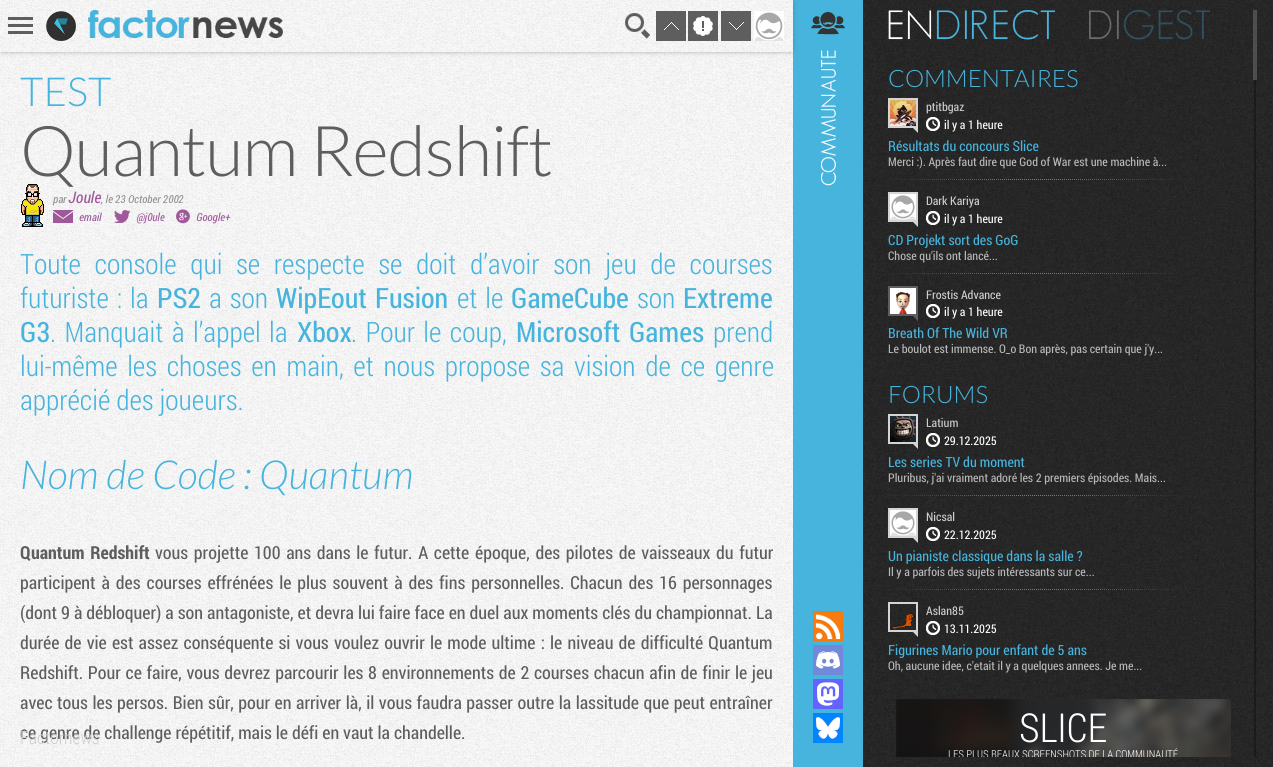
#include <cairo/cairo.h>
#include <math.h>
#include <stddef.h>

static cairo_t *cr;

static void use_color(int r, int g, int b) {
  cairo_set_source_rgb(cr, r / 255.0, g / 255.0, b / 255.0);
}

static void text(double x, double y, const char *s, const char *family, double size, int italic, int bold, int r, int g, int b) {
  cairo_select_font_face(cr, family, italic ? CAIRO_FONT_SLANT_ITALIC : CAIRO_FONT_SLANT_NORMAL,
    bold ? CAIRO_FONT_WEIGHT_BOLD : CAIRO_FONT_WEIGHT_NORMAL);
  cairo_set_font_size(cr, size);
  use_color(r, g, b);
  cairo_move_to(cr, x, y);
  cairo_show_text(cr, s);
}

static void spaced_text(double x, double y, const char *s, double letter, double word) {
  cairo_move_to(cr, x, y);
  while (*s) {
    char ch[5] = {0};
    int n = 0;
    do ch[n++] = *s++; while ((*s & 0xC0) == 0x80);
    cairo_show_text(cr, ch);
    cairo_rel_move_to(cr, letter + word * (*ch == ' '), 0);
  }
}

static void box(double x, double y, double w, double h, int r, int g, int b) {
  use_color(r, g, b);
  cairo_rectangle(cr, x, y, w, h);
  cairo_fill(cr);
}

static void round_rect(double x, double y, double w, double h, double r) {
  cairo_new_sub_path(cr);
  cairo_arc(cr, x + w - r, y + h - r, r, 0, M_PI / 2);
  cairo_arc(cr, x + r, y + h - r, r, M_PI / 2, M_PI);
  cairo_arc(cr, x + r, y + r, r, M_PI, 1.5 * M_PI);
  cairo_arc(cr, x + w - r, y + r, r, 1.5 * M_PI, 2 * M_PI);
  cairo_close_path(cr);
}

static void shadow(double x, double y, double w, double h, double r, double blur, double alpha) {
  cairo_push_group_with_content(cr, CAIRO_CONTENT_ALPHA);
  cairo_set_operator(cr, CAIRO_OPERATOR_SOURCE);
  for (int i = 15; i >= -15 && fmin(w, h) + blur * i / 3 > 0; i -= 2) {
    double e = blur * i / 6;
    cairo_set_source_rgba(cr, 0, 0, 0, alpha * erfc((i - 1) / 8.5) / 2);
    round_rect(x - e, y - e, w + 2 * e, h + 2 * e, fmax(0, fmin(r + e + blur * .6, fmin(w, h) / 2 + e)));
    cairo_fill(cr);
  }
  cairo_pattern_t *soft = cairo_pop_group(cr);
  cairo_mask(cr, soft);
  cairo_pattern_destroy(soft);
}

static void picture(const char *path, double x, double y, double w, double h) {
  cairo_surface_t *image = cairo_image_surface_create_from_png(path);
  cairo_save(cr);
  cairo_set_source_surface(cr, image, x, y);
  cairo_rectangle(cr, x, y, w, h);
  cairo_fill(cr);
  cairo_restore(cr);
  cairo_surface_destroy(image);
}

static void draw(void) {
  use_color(255, 255, 255);
  cairo_paint(cr);
  picture("img_01.png", 0, 52, 793, 715);
  box(793, 0, 70, 767, 71, 180, 221);
  use_color(94, 94, 94);
  shadow(2, 2, 789, 48, 0, 3, 1);
  picture("img_02.png", 0, 0, 793, 52);
  box(8, 17, 25, 3, 94, 94, 94);
  box(8, 24, 25, 3, 94, 94, 94);
  box(8, 31, 25, 3, 94, 94, 94);
  picture("img_03.png", 46, 11, 30, 30);
  picture("img_04.png", 88, 10, 195, 28);
  picture("img_05.png", 625, 13, 25, 26);
  box(656, 11, 30, 30, 94, 94, 94);
  picture("img_06.png", 664, 22, 15, 8);
  box(688, 11, 30, 30, 94, 94, 94);
  picture("img_07.png", 693, 16, 20, 20);
  box(721, 11, 30, 30, 94, 94, 94);
  picture("img_08.png", 729, 22, 15, 8);
  picture("img_09.png", 754, 11, 30, 30);
  picture("img_11.png", 53, 210, 20, 13);
  picture("img_12.png", 114, 210, 16, 13);
  picture("img_13.png", 176, 209, 14, 15);
  picture("img_14.png", 863, 0, 410, 767);
  picture("img_15.png", 811, 12, 34, 23);
  picture("img_16.png", 821, 50, 15, 136);
  picture("img_17.png", 813, 611, 30, 30);
  picture("img_18.png", 813, 645, 30, 30);
  picture("img_19.png", 813, 679, 30, 30);
  picture("img_20.png", 813, 713, 30, 30);
  picture("img_21.png", 888, 10, 167, 30);
  picture("img_22.png", 1089, 10, 121, 30);
  cairo_rectangle(cr, 889, 99, 28, 28);
  use_color(212, 212, 212);
  cairo_stroke(cr);
  picture("img_23.png", 890, 100, 26, 26);
  picture("img_24.png", 913, 128, 5, 5);
  picture("img_25.png", 926, 117, 14, 14);
  picture("img_26.png", 888, 179, 303, 1);
  cairo_rectangle(cr, 889, 193, 28, 28);
  cairo_stroke(cr);
  picture("img_27.png", 890, 194, 26, 26);
  picture("img_28.png", 913, 222, 5, 5);
  picture("img_29.png", 926, 211, 14, 14);
  picture("img_30.png", 888, 273, 303, 1);
  cairo_rectangle(cr, 889, 287, 28, 28);
  use_color(94, 94, 94);
  cairo_stroke(cr);
  picture("img_31.png", 890, 288, 26, 26);
  picture("img_32.png", 913, 316, 5, 5);
  picture("img_33.png", 926, 304, 14, 14);
  cairo_rectangle(cr, 889, 415, 28, 28);
  use_color(212, 212, 212);
  cairo_stroke(cr);
  picture("img_34.png", 890, 416, 26, 26);
  picture("img_35.png", 913, 444, 5, 5);
  picture("img_36.png", 926, 433, 14, 14);
  picture("img_37.png", 888, 495, 303, 1);
  cairo_rectangle(cr, 889, 509, 28, 28);
  cairo_stroke(cr);
  picture("img_27.png", 890, 510, 26, 26);
  picture("img_38.png", 913, 538, 5, 5);
  picture("img_39.png", 926, 527, 14, 14);
  picture("img_40.png", 888, 589, 305, 1);
  cairo_rectangle(cr, 889, 603, 28, 28);
  cairo_stroke(cr);
  picture("img_41.png", 891, 613, 24, 16);
  picture("img_42.png", 913, 632, 5, 5);
  picture("img_43.png", 926, 621, 14, 14);
  box(896, 699, 335, 58, 38, 38, 38);
  picture("img_44.png", 896, 699, 335, 58);
  cairo_set_source_rgba(cr, 0, 0, 0, 0.3);
  round_rect(1254, 10, 2, 747, 1);
  cairo_fill(cr);
  cairo_set_source_rgba(cr, 0.369, 0.369, 0.369, 0.75);
  cairo_rectangle(cr, 1253, 10, 4, 70);
  cairo_fill(cr);
  text(20, 106, "TEST", "Lato Light", 40, 0, 0, 71, 180, 221);
  cairo_set_font_size(cr, 70);
  use_color(94, 94, 94);
  spaced_text(20, 176, "Quantum Redshift", -1, 0);
  picture("img_10.png", 21, 184, 23, 43);
  text(53, 203, "par", "Roboto Condensed", 11, 1, 0, 145, 145, 145);
  text(68, 203, "Joule", "Roboto Condensed", 16, 1, 0, 159, 88, 154);
  text(101, 203, ", le 23 October 2002", "Roboto Condensed", 11, 1, 0, 145, 145, 145);
  text(79, 221, "email", "Roboto Condensed", 11, 1, 0, 159, 88, 154);
  text(136, 221, "@j0ule", "Roboto Condensed", 11, 1, 0, 159, 88, 154);
  text(196, 221, "Google+", "Roboto Condensed", 11, 1, 0, 159, 88, 154);
  cairo_select_font_face(cr, "Roboto Condensed Light", CAIRO_FONT_SLANT_NORMAL, CAIRO_FONT_WEIGHT_NORMAL);
  cairo_set_font_size(cr, 28);
  use_color(71, 180, 221);
  spaced_text(20, 274, "Toute console qui se respecte se doit d’avoir son jeu de courses", 0, 7.75);
  spaced_text(20, 308, "futuriste : la", 0, 2);
  text(157, 308, "PS2", "Roboto Condensed", 28, 0, 0, 71, 180, 221);
  cairo_select_font_face(cr, "Roboto Condensed Light", CAIRO_FONT_SLANT_NORMAL, CAIRO_FONT_WEIGHT_NORMAL);
  spaced_text(209, 308, "a son", 0, 2);
  cairo_select_font_face(cr, "Roboto Condensed", CAIRO_FONT_SLANT_NORMAL, CAIRO_FONT_WEIGHT_NORMAL);
  spaced_text(276, 308, "WipEout Fusion", 0, 2);
  cairo_select_font_face(cr, "Roboto Condensed Light", CAIRO_FONT_SLANT_NORMAL, CAIRO_FONT_WEIGHT_NORMAL);
  spaced_text(457, 308, "et le", 0, 2);
  text(511, 308, "GameCube", "Roboto Condensed", 28, 0, 0, 71, 180, 221);
  text(637, 308, "son", "Roboto Condensed Light", 28, 0, 0, 71, 180, 221);
  text(683, 308, "Extreme", "Roboto Condensed", 28, 0, 0, 71, 180, 221);
  text(20, 342, "G3", "Roboto Condensed", 28, 0, 0, 71, 180, 221);
  cairo_select_font_face(cr, "Roboto Condensed Light", CAIRO_FONT_SLANT_NORMAL, CAIRO_FONT_WEIGHT_NORMAL);
  spaced_text(50, 342, ". Manquait à l’appel la", 0, 2.5);
  text(297, 342, "Xbox", "Roboto Condensed", 28, 0, 0, 71, 180, 221);
  cairo_select_font_face(cr, "Roboto Condensed Light", CAIRO_FONT_SLANT_NORMAL, CAIRO_FONT_WEIGHT_NORMAL);
  spaced_text(351, 342, ". Pour le coup,", 0, 2.5);
  cairo_select_font_face(cr, "Roboto Condensed", CAIRO_FONT_SLANT_NORMAL, CAIRO_FONT_WEIGHT_NORMAL);
  spaced_text(516, 342, "Microsoft Games", 0, 2.5);
  text(713, 342, "prend", "Roboto Condensed Light", 28, 0, 0, 71, 180, 221);
  spaced_text(20, 376, "lui-même les choses en main, et nous propose sa vision de ce genre", 0, 3.75);
  text(20, 410, "apprécié des joueurs.", "Roboto Condensed Light", 28, 0, 0, 71, 180, 221);
  text(20, 489, "Nom de Code : Quantum", "Lato Light", 40, 1, 0, 71, 180, 221);
  cairo_select_font_face(cr, "Roboto Condensed", CAIRO_FONT_SLANT_NORMAL, CAIRO_FONT_WEIGHT_BOLD);
  cairo_set_font_size(cr, 18);
  use_color(94, 94, 94);
  spaced_text(20, 559, "Quantum Redshift", 0, 2);
  cairo_select_font_face(cr, "Roboto Condensed", CAIRO_FONT_SLANT_NORMAL, CAIRO_FONT_WEIGHT_NORMAL);
  spaced_text(155, 559, "vous projette 100 ans dans le futur. A cette époque, des pilotes de vaisseaux du futur", 0, 1.75);
  spaced_text(20, 589, "participent à des courses effrénées le plus souvent à des fins personnelles. Chacun des 16 personnages", 0, 2);
  spaced_text(20, 619, "(dont 9 à débloquer) a son antagoniste, et devra lui faire face en duel aux moments clés du championnat. La", 0, 0.1);
  spaced_text(20, 649, "durée de vie est assez conséquente si vous voulez ouvrir le mode ultime : le niveau de difficulté Quantum", 0, 1.25);
  spaced_text(20, 679, "Redshift. Pour ce faire, vous devrez parcourir les 8 environnements de 2 courses chacun afin de finir le jeu", 0, 0.8);
  spaced_text(20, 709, "avec tous les persos. Bien sûr, pour en arriver là, il vous faudra passer outre la lassitude que peut entraîner", 0, 0.6);
  text(20, 739, "ce genre de challenge répétitif, mais le défi en vaut la chandelle.", "Roboto Condensed", 18, 0, 0, 94, 94, 94);
  text(888, 87, "COMMENTAIRES", "Lato Light", 24, 0, 0, 71, 180, 221);
  text(926, 111, "ptitbgaz", "Roboto Condensed", 12, 0, 0, 207, 207, 207);
  text(944, 129, "il y a 1 heure", "Roboto Condensed", 12, 0, 0, 255, 255, 255);
  text(888, 151, "Résultats du concours Slice", "Roboto Condensed", 14, 0, 0, 71, 180, 221);
  text(888, 166, "Merci :). Après faut dire que God of War est une machine à...", "Roboto Condensed", 12, 0, 0, 185, 185, 185);
  text(926, 205, "Dark Kariya", "Roboto Condensed", 12, 0, 0, 207, 207, 207);
  text(944, 223, "il y a 1 heure", "Roboto Condensed", 12, 0, 0, 255, 255, 255);
  text(888, 245, "CD Projekt sort des GoG", "Roboto Condensed", 14, 0, 0, 71, 180, 221);
  text(888, 260, "Chose qu'ils ont lancé...", "Roboto Condensed", 12, 0, 0, 185, 185, 185);
  text(926, 299, "Frostis Advance", "Roboto Condensed", 12, 0, 0, 207, 207, 207);
  text(944, 316, "il y a 1 heure", "Roboto Condensed", 12, 0, 0, 255, 255, 255);
  text(888, 338, "Breath Of The Wild VR", "Roboto Condensed", 14, 0, 0, 71, 180, 221);
  text(888, 353, "Le boulot est immense. O_o Bon après, pas certain que j'y...", "Roboto Condensed", 12, 0, 0, 185, 185, 185);
  text(888, 403, "FORUMS", "Lato Light", 24, 0, 0, 71, 180, 221);
  text(926, 427, "Latium", "Roboto Condensed", 12, 0, 0, 207, 207, 207);
  text(944, 445, "29.12.2025", "Roboto Condensed", 12, 0, 0, 255, 255, 255);
  text(888, 467, "Les series TV du moment", "Roboto Condensed", 14, 0, 0, 71, 180, 221);
  text(888, 482, "Pluribus, j'ai vraiment adoré les 2 premiers épisodes. Mais...", "Roboto Condensed", 12, 0, 0, 185, 185, 185);
  text(926, 521, "Nicsal", "Roboto Condensed", 12, 0, 0, 207, 207, 207);
  text(944, 539, "22.12.2025", "Roboto Condensed", 12, 0, 0, 255, 255, 255);
  text(888, 561, "Un pianiste classique dans la salle ?", "Roboto Condensed", 14, 0, 0, 71, 180, 221);
  text(888, 576, "Il y a parfois des sujets intéressants sur ce...", "Roboto Condensed", 12, 0, 0, 185, 185, 185);
  text(926, 615, "Aslan85", "Roboto Condensed", 12, 0, 0, 207, 207, 207);
  text(944, 633, "13.11.2025", "Roboto Condensed", 12, 0, 0, 255, 255, 255);
  text(888, 655, "Figurines Mario pour enfant de 5 ans", "Roboto Condensed", 14, 0, 0, 71, 180, 221);
  text(888, 670, "Oh, aucune idee, c'etait il y a quelques annees. Je me...", "Roboto Condensed", 12, 0, 0, 185, 185, 185);
  text(1019, 742, "SLICE", "Roboto Condensed Light", 40, 0, 0, 255, 255, 255);
  cairo_save(cr);
  cairo_rectangle(cr, 896, 699, 335, 58);
  cairo_clip(cr);
  text(948, 758, "LES PLUS BEAUX SCREENSHOTS DE LA COMMUNAUTÉ", "Roboto Condensed Light", 11, 0, 0, 255, 255, 255);
  cairo_restore(cr);
  text(20, 744, "Factornews", "Roboto Condensed Light", 18, 0, 0, 207, 207, 207);
}

int main(void) {
  cairo_surface_t *surface = cairo_image_surface_create(CAIRO_FORMAT_RGB24, 1273, 767);
  cr = cairo_create(surface);
  cairo_font_options_t *options = cairo_font_options_create();
  cairo_font_options_set_hint_metrics(options, CAIRO_HINT_METRICS_OFF);
  cairo_font_options_set_hint_style(options, CAIRO_HINT_STYLE_NONE);
  cairo_set_font_options(cr, options);
  cairo_set_miter_limit(cr, 4);
  draw();
  cairo_surface_write_to_png(surface, "out.png");
  cairo_font_options_destroy(options);
  cairo_destroy(cr);
  cairo_surface_destroy(surface);
  return 0;
}
